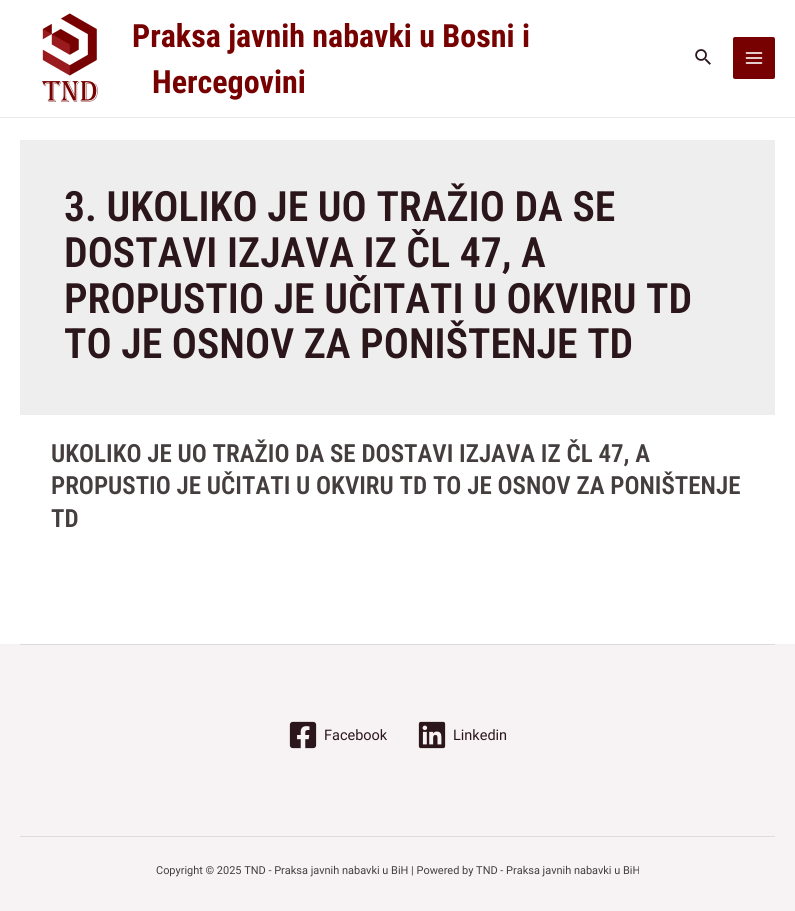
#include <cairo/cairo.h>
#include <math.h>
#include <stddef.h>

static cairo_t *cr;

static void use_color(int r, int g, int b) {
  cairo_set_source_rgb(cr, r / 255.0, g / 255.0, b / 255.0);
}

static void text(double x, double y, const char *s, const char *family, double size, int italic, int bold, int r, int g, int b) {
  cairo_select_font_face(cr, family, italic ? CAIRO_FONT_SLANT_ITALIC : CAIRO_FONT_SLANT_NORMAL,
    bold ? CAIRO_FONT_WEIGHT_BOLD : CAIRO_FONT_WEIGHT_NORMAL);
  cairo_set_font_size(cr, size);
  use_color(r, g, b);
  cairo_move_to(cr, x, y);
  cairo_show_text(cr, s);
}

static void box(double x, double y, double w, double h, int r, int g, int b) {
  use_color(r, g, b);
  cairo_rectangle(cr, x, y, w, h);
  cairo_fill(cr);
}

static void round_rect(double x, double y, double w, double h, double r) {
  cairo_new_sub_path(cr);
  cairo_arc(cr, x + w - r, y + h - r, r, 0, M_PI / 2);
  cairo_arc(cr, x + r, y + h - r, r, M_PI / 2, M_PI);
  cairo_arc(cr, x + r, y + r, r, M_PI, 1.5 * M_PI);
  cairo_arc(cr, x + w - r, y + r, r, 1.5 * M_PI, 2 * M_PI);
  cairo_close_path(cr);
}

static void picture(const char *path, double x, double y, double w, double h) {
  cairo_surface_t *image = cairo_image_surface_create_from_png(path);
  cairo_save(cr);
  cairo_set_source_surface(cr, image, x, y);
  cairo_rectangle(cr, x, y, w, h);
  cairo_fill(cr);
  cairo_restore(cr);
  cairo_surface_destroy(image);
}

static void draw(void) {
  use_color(255, 255, 255);
  cairo_paint(cr);
  box(0, 117, 795, 1, 234, 234, 234);
  picture("img_01.png", 42, 13, 56, 89);
  picture("img_02.png", 695, 49, 16, 16);
  use_color(119, 0, 0);
  round_rect(733, 37, 42, 42, 2);
  cairo_fill(cr);
  picture("img_03.png", 745, 52, 18, 12);
  box(20, 140, 755, 275, 238, 238, 238);
  box(0, 644, 795, 267, 247, 243, 245);
  box(20, 644, 755, 1, 222, 219, 221);
  picture("img_04.png", 289, 721, 28, 28);
  picture("img_05.png", 418, 721, 28, 28);
  box(20, 836, 755, 1, 222, 219, 221);
  text(132, 47, "Praksa javnih nabavki u Bosni i", "Roboto Condensed", 32, 0, 1, 119, 0, 0);
  text(152, 93, "Hercegovini", "Roboto Condensed", 32, 0, 1, 119, 0, 0);
  text(64, 221, "3. UKOLIKO JE UO TRAŽIO DA SE", "Roboto Condensed SemiBold", 41.75, 0, 0, 43, 22, 27);
  text(64, 267, "DOSTAVI IZJAVA IZ ČL 47, A", "Roboto Condensed SemiBold", 41.75, 0, 0, 43, 22, 27);
  text(64, 313, "PROPUSTIO JE UČITATI U OKVIRU TD", "Roboto Condensed SemiBold", 41.75, 0, 0, 43, 22, 27);
  text(64, 358, "TO JE OSNOV ZA PONIŠTENJE TD", "Roboto Condensed SemiBold", 41.75, 0, 0, 43, 22, 27);
  text(51, 462, "UKOLIKO JE UO TRAŽIO DA SE DOSTAVI IZJAVA IZ ČL 47, A", "Roboto Condensed SemiBold", 25, 0, 0, 69, 62, 62);
  text(51, 494, "PROPUSTIO JE UČITATI U OKVIRU TD TO JE OSNOV ZA PONIŠTENJE", "Roboto Condensed SemiBold", 25, 0, 0, 69, 62, 62);
  text(51, 527, "TD", "Roboto Condensed SemiBold", 25, 0, 0, 69, 62, 62);
  text(324, 740, "Facebook", "Roboto", 14.5, 0, 0, 43, 22, 27);
  text(453, 740, "Linkedin", "Roboto", 14.5, 0, 0, 43, 22, 27);
  text(156, 874, "Copyright © 2025 TND - Praksa javnih nabavki u BiH | Powered by TND - Praksa javnih nabavki u BiH", "Roboto", 10.95, 0, 0, 69, 62, 62);
}

int main(void) {
  cairo_surface_t *surface = cairo_image_surface_create(CAIRO_FORMAT_RGB24, 795, 911);
  cr = cairo_create(surface);
  cairo_font_options_t *options = cairo_font_options_create();
  cairo_font_options_set_hint_metrics(options, CAIRO_HINT_METRICS_OFF);
  cairo_font_options_set_hint_style(options, CAIRO_HINT_STYLE_NONE);
  cairo_set_font_options(cr, options);
  cairo_set_miter_limit(cr, 4);
  draw();
  cairo_surface_write_to_png(surface, "out.png");
  cairo_font_options_destroy(options);
  cairo_destroy(cr);
  cairo_surface_destroy(surface);
  return 0;
}
